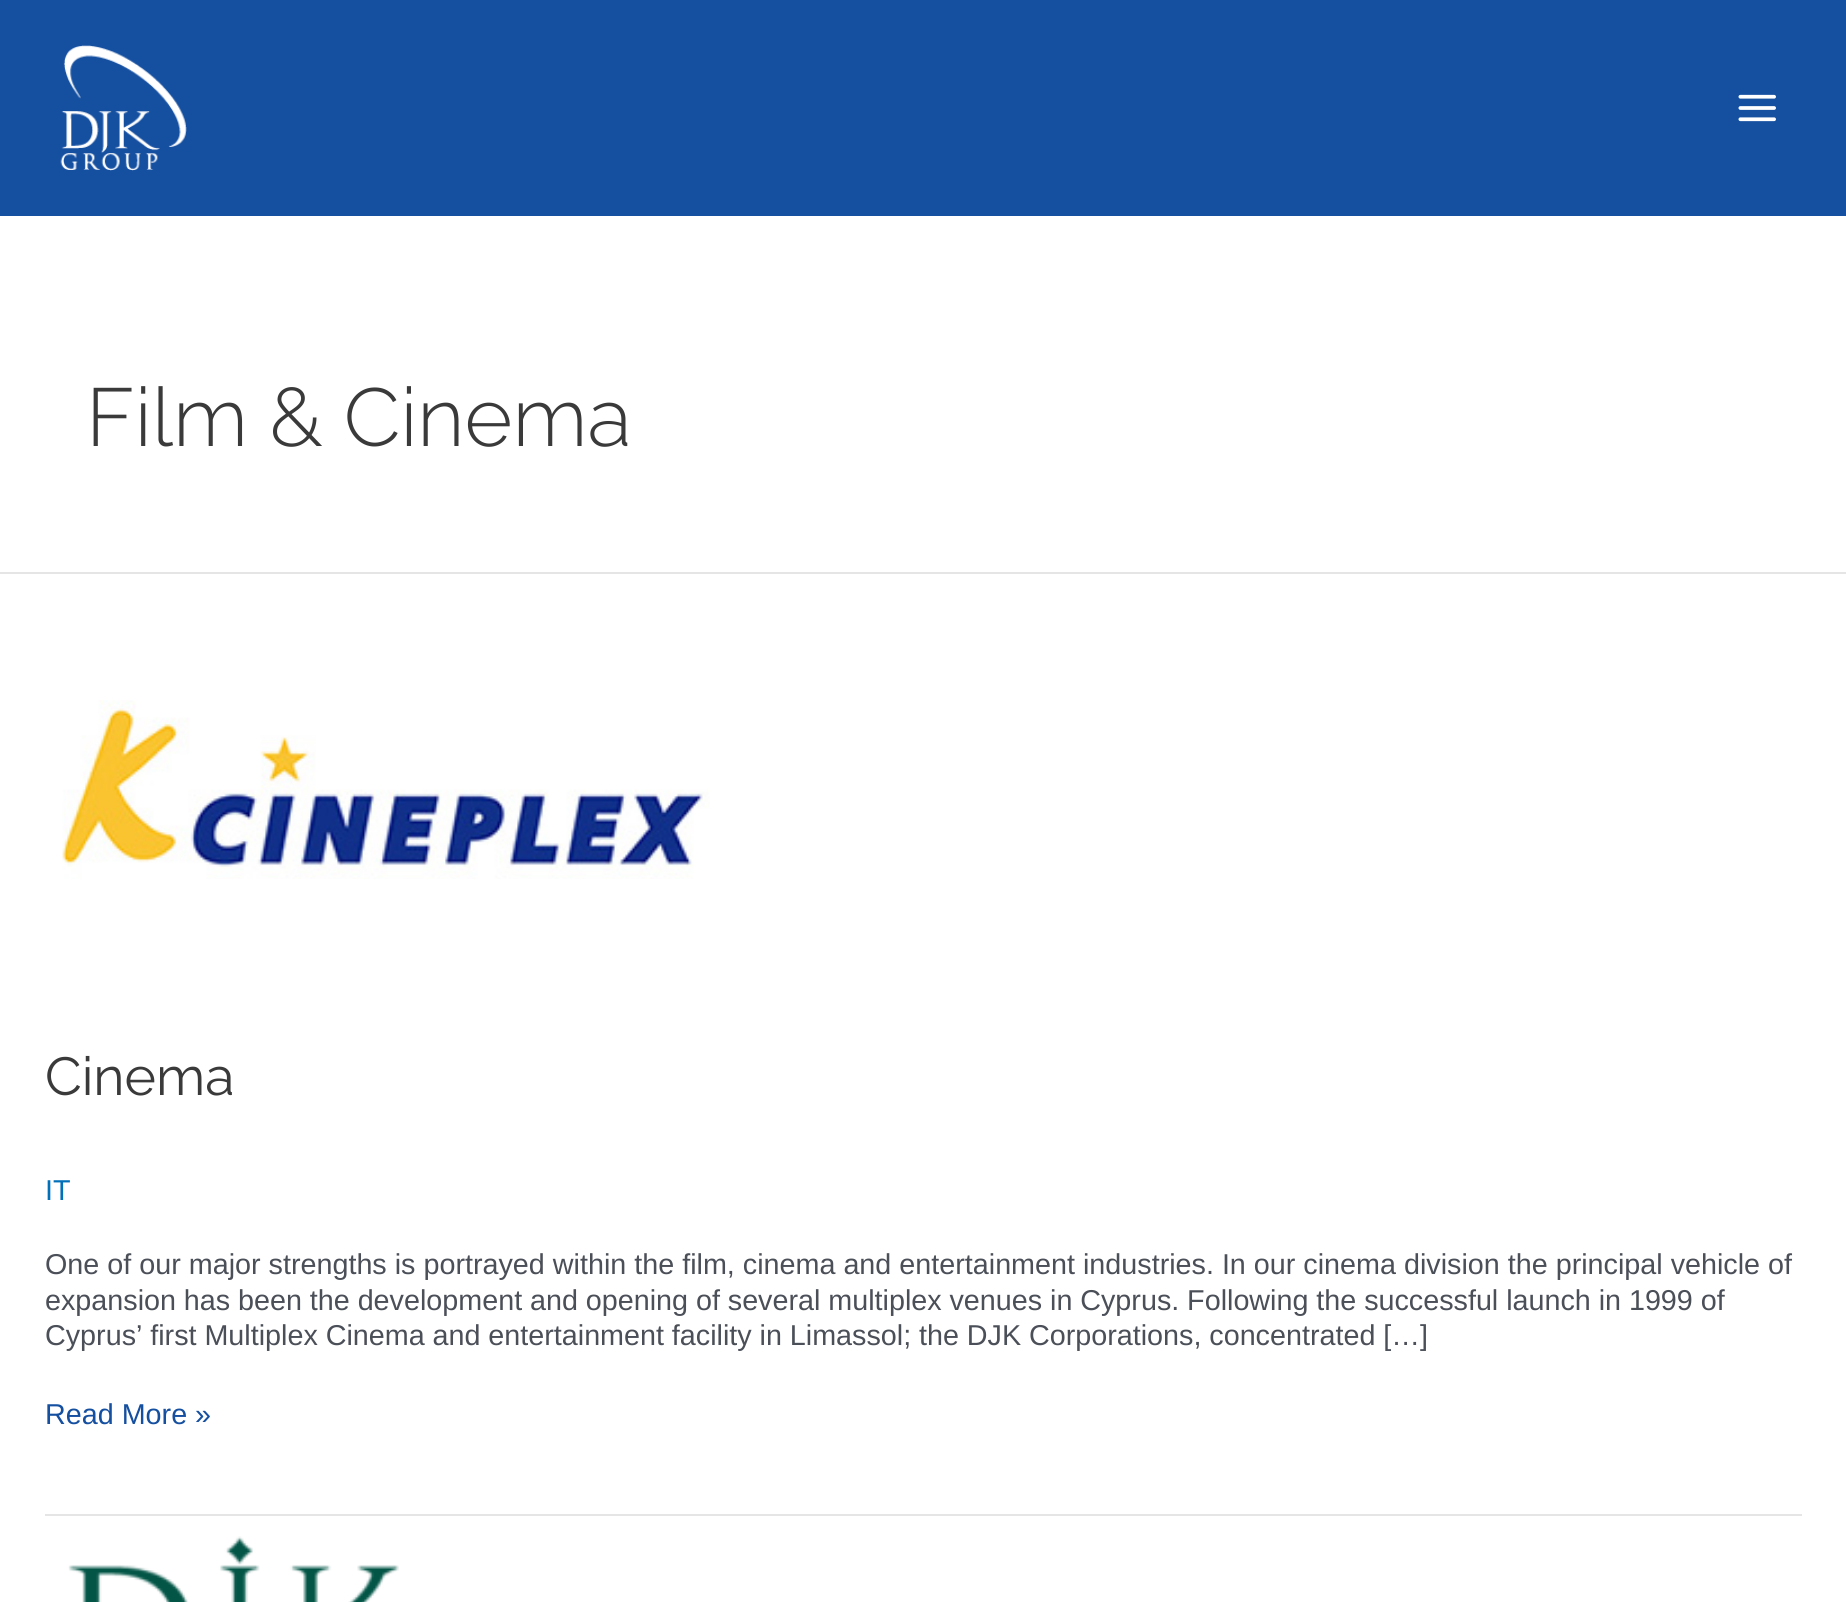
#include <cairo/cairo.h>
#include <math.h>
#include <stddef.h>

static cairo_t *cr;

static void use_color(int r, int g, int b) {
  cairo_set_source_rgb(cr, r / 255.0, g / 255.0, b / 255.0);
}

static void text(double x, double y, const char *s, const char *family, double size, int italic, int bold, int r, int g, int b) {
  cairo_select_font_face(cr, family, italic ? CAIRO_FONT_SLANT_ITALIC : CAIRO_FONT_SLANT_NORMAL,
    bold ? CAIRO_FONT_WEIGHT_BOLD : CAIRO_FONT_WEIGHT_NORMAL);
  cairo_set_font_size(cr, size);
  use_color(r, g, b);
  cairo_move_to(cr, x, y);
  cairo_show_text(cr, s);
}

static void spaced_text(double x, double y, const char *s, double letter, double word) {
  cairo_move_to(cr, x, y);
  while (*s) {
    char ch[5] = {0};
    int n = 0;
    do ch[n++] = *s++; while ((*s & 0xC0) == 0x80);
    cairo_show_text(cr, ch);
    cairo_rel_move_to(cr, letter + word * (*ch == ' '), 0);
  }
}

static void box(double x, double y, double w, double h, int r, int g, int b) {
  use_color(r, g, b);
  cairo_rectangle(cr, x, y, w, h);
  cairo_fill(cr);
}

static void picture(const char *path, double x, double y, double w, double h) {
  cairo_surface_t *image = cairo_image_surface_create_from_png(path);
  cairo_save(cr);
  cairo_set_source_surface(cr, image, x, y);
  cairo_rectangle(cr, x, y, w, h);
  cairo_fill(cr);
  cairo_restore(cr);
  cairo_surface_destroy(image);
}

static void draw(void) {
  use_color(255, 255, 255);
  cairo_paint(cr);
  box(0, 0, 1846, 216, 21, 79, 160);
  picture("img_01.png", 60, 45, 127, 126);
  picture("img_02.png", 1738, 94, 38, 28);
  box(0, 572, 1846, 2, 229, 229, 229);
  box(45, 1514, 1757, 2, 229, 229, 229);
  picture("img_03.png", 62, 700, 648, 179);
  picture("img_04.png", 68, 1536, 331, 66);
  text(86, 446, "Film & Cinema", "Raleway Light", 82, 0, 0, 58, 58, 58);
  text(45, 1095, "Cinema", "Raleway", 53.5, 0, 0, 58, 58, 58);
  text(45, 1200, "IT", "Liberation Sans", 28.73, 0, 0, 1, 112, 185);
  text(45, 1274, "One of our major strengths is portrayed within the film, cinema and entertainment industries. In our cinema division the principal vehicle of", "Liberation Sans", 28.73, 0, 0, 75, 79, 88);
  spaced_text(45, 1310, "expansion has been the development and opening of several multiplex venues in Cyprus. Following the successful launch in 1999 of", 0, -0.1);
  spaced_text(45, 1345, "Cyprus’ first Multiplex Cinema and entertainment facility in Limassol; the DJK Corporations, concentrated […]", 0, -0.1);
  text(45, 1424, "Read More »", "Liberation Sans", 28.73, 0, 0, 21, 79, 160);
}

int main(void) {
  cairo_surface_t *surface = cairo_image_surface_create(CAIRO_FORMAT_RGB24, 1846, 1602);
  cr = cairo_create(surface);
  cairo_font_options_t *options = cairo_font_options_create();
  cairo_font_options_set_hint_metrics(options, CAIRO_HINT_METRICS_OFF);
  cairo_font_options_set_hint_style(options, CAIRO_HINT_STYLE_NONE);
  cairo_set_font_options(cr, options);
  cairo_set_miter_limit(cr, 4);
  draw();
  cairo_surface_write_to_png(surface, "out.png");
  cairo_font_options_destroy(options);
  cairo_destroy(cr);
  cairo_surface_destroy(surface);
  return 0;
}
